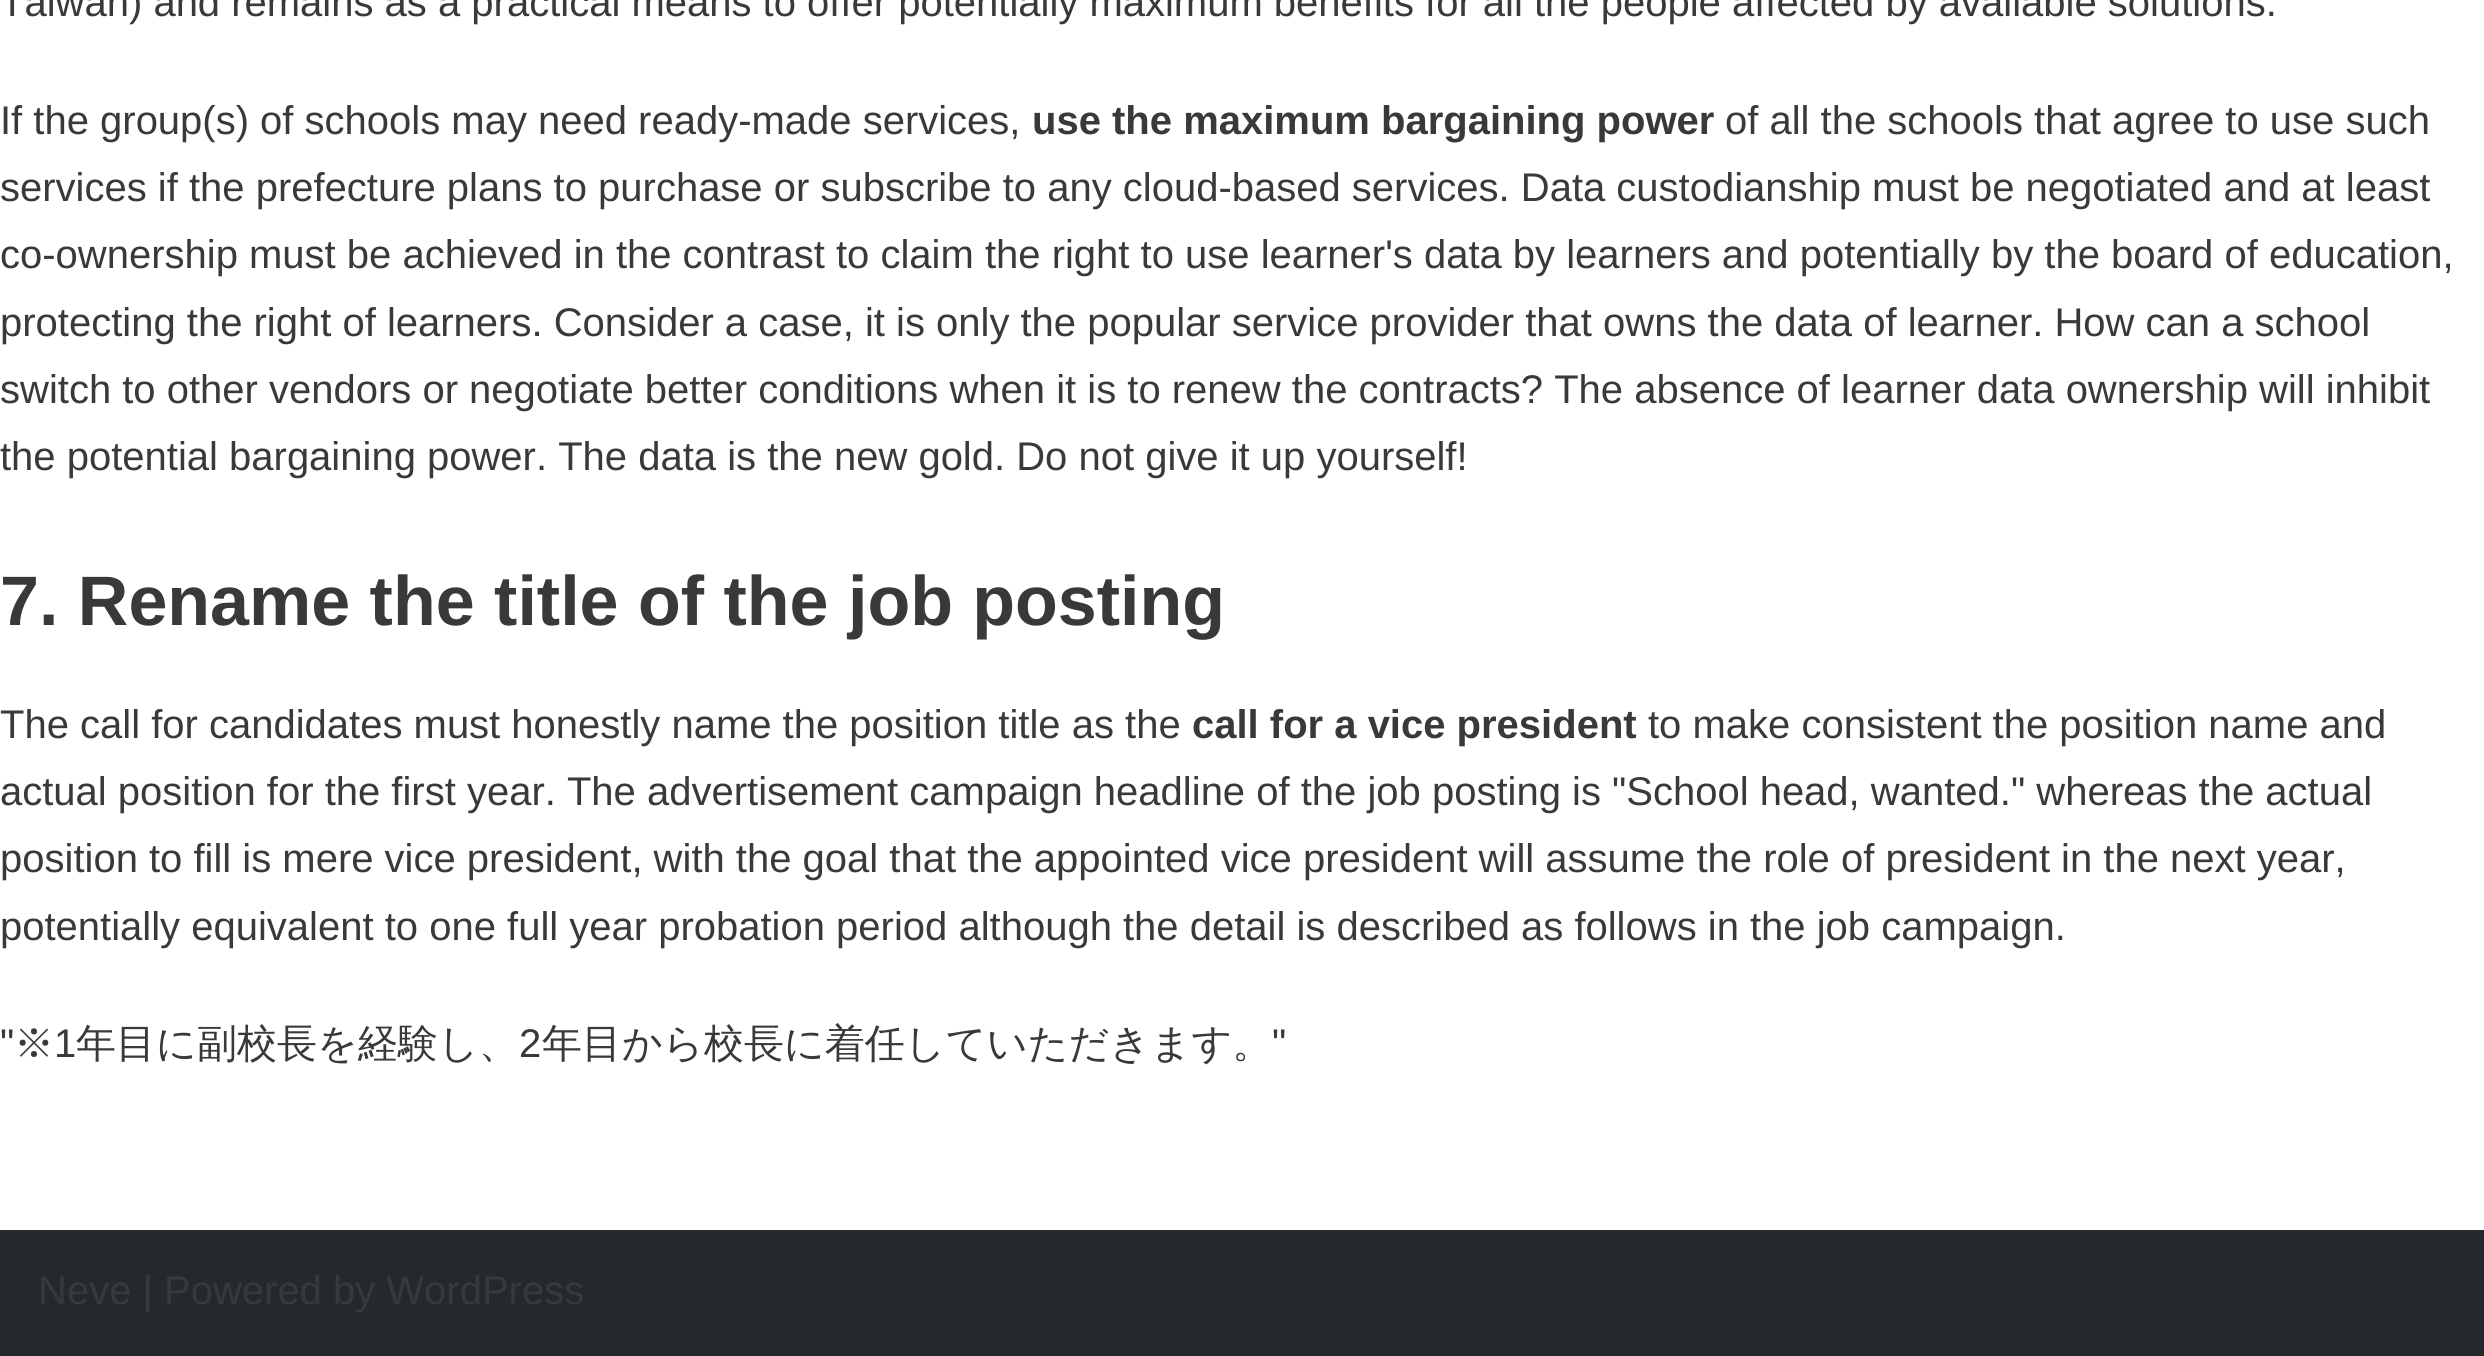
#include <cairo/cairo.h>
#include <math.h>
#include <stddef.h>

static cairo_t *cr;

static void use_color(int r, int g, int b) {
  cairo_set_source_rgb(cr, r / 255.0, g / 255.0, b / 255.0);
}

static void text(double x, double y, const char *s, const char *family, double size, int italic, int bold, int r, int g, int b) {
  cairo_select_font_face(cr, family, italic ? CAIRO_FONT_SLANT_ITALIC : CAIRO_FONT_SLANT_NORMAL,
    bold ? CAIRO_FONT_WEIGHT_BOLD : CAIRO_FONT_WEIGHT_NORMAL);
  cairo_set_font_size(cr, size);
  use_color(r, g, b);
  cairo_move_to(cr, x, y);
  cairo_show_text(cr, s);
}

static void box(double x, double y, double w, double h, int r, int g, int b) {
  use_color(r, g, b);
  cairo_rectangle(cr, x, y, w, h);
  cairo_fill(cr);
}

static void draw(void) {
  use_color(255, 255, 255);
  cairo_paint(cr);
  box(0, 1230, 2484, 126, 36, 41, 46);
  text(0, 16, "Taiwan) and remains as a practical means to offer potentially maximum benefits for all the people affected by available solutions.", "Liberation Sans", 40, 0, 0, 57, 57, 57);
  text(0, 134, "If the group(s) of schools may need ready-made services,", "Liberation Sans", 40, 0, 0, 57, 57, 57);
  text(1032, 134, "use the maximum bargaining power", "Liberation Sans", 40, 0, 1, 57, 57, 57);
  text(1725, 134, "of all the schools that agree to use such", "Liberation Sans", 40, 0, 0, 57, 57, 57);
  text(0, 201, "services if the prefecture plans to purchase or subscribe to any cloud-based services. Data custodianship must be negotiated and at least", "Liberation Sans", 40, 0, 0, 57, 57, 57);
  text(0, 268, "co-ownership must be achieved in the contrast to claim the right to use learner's data by learners and potentially by the board of education,", "Liberation Sans", 40, 0, 0, 57, 57, 57);
  text(0, 336, "protecting the right of learners. Consider a case, it is only the popular service provider that owns the data of learner. How can a school", "Liberation Sans", 40, 0, 0, 57, 57, 57);
  text(0, 403, "switch to other vendors or negotiate better conditions when it is to renew the contracts? The absence of learner data ownership will inhibit", "Liberation Sans", 40, 0, 0, 57, 57, 57);
  text(0, 470, "the potential bargaining power. The data is the new gold. Do not give it up yourself!", "Liberation Sans", 40, 0, 0, 57, 57, 57);
  text(0, 625, "7. Rename the title of the job posting", "Liberation Sans", 70, 0, 1, 57, 57, 57);
  text(0, 738, "The call for candidates must honestly name the position title as the", "Liberation Sans", 40, 0, 0, 57, 57, 57);
  text(1192, 738, "call for a vice president", "Liberation Sans", 40, 0, 1, 57, 57, 57);
  text(1648, 738, "to make consistent the position name and", "Liberation Sans", 40, 0, 0, 57, 57, 57);
  text(0, 805, "actual position for the first year. The advertisement campaign headline of the job posting is \"School head, wanted.\" whereas the actual", "Liberation Sans", 40, 0, 0, 57, 57, 57);
  text(0, 872, "position to fill is mere vice president, with the goal that the appointed vice president will assume the role of president in the next year,", "Liberation Sans", 40, 0, 0, 57, 57, 57);
  text(0, 940, "potentially equivalent to one full year probation period although the detail is described as follows in the job campaign.", "Liberation Sans", 40, 0, 0, 57, 57, 57);
  text(0, 1057, "\"", "Liberation Sans", 40, 0, 0, 57, 57, 57);
  text(14, 1057, "※", "WenQuanYi Zen Hei Medium", 40, 0, 0, 57, 57, 57);
  text(54, 1057, "1", "Liberation Sans", 40, 0, 0, 57, 57, 57);
  text(76, 1057, "年目に副校長を経験し、", "WenQuanYi Zen Hei Medium", 40, 0, 0, 57, 57, 57);
  text(519, 1057, "2", "Liberation Sans", 40, 0, 0, 57, 57, 57);
  text(542, 1057, "年目から校長に着任していただきます。", "WenQuanYi Zen Hei Medium", 40, 0, 0, 57, 57, 57);
  text(1272, 1057, "\"", "Liberation Sans", 40, 0, 0, 57, 57, 57);
  text(38, 1304, "Neve | Powered by WordPress", "Liberation Sans", 40, 0, 0, 57, 57, 57);
}

int main(void) {
  cairo_surface_t *surface = cairo_image_surface_create(CAIRO_FORMAT_RGB24, 2484, 1356);
  cr = cairo_create(surface);
  cairo_font_options_t *options = cairo_font_options_create();
  cairo_font_options_set_hint_metrics(options, CAIRO_HINT_METRICS_OFF);
  cairo_font_options_set_hint_style(options, CAIRO_HINT_STYLE_NONE);
  cairo_set_font_options(cr, options);
  cairo_set_miter_limit(cr, 4);
  draw();
  cairo_surface_write_to_png(surface, "out.png");
  cairo_font_options_destroy(options);
  cairo_destroy(cr);
  cairo_surface_destroy(surface);
  return 0;
}
